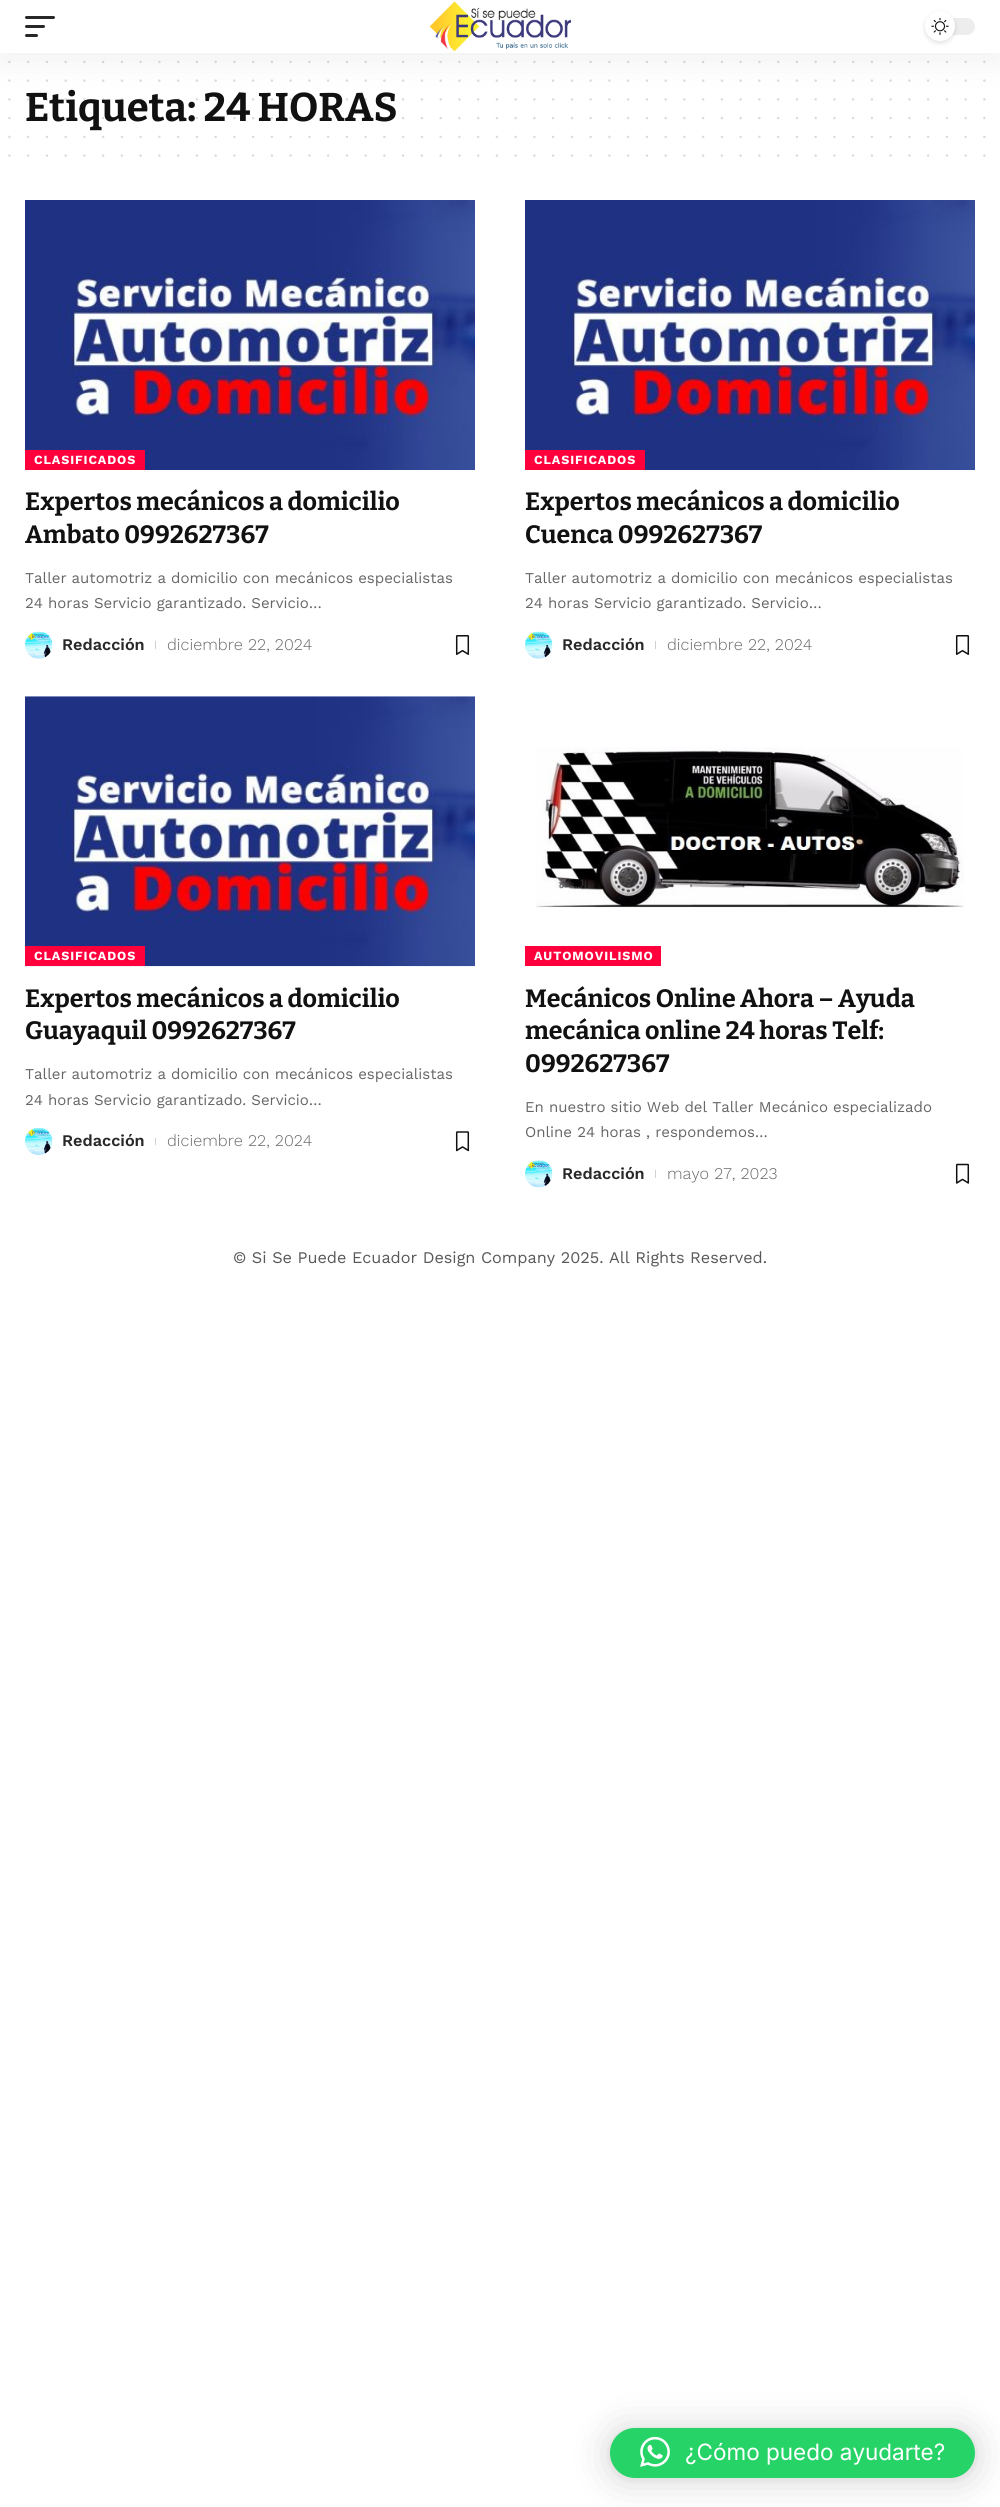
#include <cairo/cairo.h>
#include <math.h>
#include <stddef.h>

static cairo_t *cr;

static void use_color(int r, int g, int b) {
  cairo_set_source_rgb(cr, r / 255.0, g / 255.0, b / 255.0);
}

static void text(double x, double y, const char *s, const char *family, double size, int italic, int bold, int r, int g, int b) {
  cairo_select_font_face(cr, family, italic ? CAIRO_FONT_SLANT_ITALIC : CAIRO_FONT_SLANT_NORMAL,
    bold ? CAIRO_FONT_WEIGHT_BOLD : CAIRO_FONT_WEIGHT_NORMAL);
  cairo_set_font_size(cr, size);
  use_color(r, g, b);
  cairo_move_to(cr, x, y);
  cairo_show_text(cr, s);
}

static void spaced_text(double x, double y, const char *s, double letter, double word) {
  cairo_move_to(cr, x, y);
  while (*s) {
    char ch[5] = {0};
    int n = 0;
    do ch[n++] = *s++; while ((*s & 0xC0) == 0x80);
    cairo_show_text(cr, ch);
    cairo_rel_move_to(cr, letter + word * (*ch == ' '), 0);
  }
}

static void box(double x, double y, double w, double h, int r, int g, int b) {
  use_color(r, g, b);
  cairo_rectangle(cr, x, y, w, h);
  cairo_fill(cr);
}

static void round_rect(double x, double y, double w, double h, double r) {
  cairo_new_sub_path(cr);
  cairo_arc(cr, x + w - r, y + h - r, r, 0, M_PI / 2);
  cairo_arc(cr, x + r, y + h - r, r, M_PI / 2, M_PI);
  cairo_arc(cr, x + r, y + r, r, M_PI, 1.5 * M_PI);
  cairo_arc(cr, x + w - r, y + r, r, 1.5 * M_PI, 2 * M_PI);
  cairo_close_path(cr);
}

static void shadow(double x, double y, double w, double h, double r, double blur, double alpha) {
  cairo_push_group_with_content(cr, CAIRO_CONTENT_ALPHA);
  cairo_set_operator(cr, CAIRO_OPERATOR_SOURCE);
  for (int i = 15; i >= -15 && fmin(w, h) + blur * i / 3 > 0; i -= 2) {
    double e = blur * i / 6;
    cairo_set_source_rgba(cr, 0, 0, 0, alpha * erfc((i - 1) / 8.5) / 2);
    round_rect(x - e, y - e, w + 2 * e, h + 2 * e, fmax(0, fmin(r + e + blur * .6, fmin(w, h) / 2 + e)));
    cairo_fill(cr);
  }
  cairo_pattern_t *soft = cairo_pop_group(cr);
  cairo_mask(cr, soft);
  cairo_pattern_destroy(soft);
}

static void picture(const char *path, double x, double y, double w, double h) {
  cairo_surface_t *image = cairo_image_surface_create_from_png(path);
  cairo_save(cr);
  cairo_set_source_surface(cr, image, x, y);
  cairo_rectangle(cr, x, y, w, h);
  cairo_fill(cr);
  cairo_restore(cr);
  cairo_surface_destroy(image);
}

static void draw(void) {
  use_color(255, 255, 255);
  cairo_paint(cr);
  cairo_new_path(cr);
  cairo_move_to(cr, 9.4, 61.9);
  cairo_line_to(cr, 984.6, 61.9);
  use_color(219, 219, 219);
  cairo_set_line_width(cr, 2.5);
  cairo_set_line_cap(cr, CAIRO_LINE_CAP_ROUND);
  cairo_set_dash(cr, (double[]){0, 18.75}, 2, 0);
  cairo_stroke(cr);
  cairo_new_path(cr);
  cairo_move_to(cr, 9.4, 80.6);
  cairo_line_to(cr, 984.6, 80.6);
  cairo_stroke(cr);
  cairo_new_path(cr);
  cairo_move_to(cr, 9.4, 136.9);
  cairo_line_to(cr, 984.6, 136.9);
  cairo_stroke(cr);
  cairo_new_path(cr);
  cairo_move_to(cr, 9.4, 155.6);
  cairo_line_to(cr, 984.6, 155.6);
  cairo_stroke(cr);
  picture("img_03.png", 25, 200, 450, 270);
  box(25, 450, 120, 20, 255, 0, 60);
  picture("img_04.png", 25, 631, 28, 28);
  box(155, 641, 1, 8, 209, 209, 209);
  picture("img_05.png", 455, 635, 15, 20);
  picture("img_06.png", 525, 200, 450, 270);
  box(525, 450, 120, 20, 255, 0, 60);
  picture("img_07.png", 525, 631, 28, 28);
  box(655, 641, 1, 8, 209, 209, 209);
  picture("img_05.png", 955, 635, 15, 20);
  picture("img_08.png", 25, 696, 450, 271);
  box(25, 946, 120, 20, 255, 0, 60);
  picture("img_09.png", 25, 1127, 28, 28);
  box(155, 1138, 1, 7, 209, 209, 209);
  picture("img_10.png", 455, 1131, 15, 21);
  picture("img_11.png", 535, 747, 429, 161);
  box(525, 946, 136, 20, 255, 0, 60);
  picture("img_12.png", 525, 1160, 28, 28);
  box(655, 1170, 1, 8, 209, 209, 209);
  picture("img_13.png", 955, 1163, 15, 21);
  use_color(0, 0, 0);
  shadow(610, 2430, 365, 50, 25, 20, 0.16);
  shadow(610, 2429, 365, 50, 25, 4, 0.06);
  use_color(37, 211, 102);
  round_rect(610, 2428, 365, 50, 25);
  cairo_fill(cr);
  picture("img_14.png", 640, 2436, 30, 31);
  text(25, 121, "Etiqueta: 24 HORAS", "Bitter", 40, 0, 1, 17, 17, 17);
  cairo_new_path(cr);
  cairo_move_to(cr, 9.4, 99.4);
  cairo_line_to(cr, 984.6, 99.4);
  cairo_set_source_rgba(cr, 0.067, 0.067, 0.067, 0.15);
  cairo_stroke(cr);
  use_color(0, 0, 0);
  shadow(0, 5, 1000, 53, 0, 19, 0.07);
  box(0, 0, 1000, 53, 255, 255, 255);
  use_color(237, 237, 237);
  round_rect(925, 18, 50, 17, 8.5);
  cairo_fill(cr);
  use_color(0, 0, 0);
  shadow(925, 13, 30, 30, 15, 2.5, 0.12);
  use_color(255, 255, 255);
  cairo_arc(cr, 940, 26, 15, 0, 2 * M_PI);
  cairo_fill(cr);
  picture("img_02.png", 931, 18, 18, 17);
  use_color(40, 40, 40);
  round_rect(25, 34, 13, 3, 1.5);
  cairo_fill(cr);
  round_rect(25, 25, 20, 3, 1.5);
  cairo_fill(cr);
  round_rect(25, 16, 30, 3, 1.5);
  cairo_fill(cr);
  picture("img_01.png", 429, 1, 142, 51);
  cairo_new_path(cr);
  cairo_move_to(cr, 9.4, 118.1);
  cairo_line_to(cr, 984.6, 118.1);
  cairo_set_source_rgba(cr, 0.067, 0.067, 0.067, 0.15);
  cairo_stroke(cr);
  cairo_select_font_face(cr, "Work Sans", CAIRO_FONT_SLANT_NORMAL, CAIRO_FONT_WEIGHT_BOLD);
  cairo_set_font_size(cr, 12.5);
  use_color(255, 255, 255);
  spaced_text(34, 464, "CLASIFICADOS", 0.9, 0);
  text(25, 510, "Expertos mecánicos a domicilio", "Bitter", 25, 0, 1, 17, 17, 17);
  text(25, 543, "Ambato 0992627367", "Bitter", 25, 0, 1, 17, 17, 17);
  text(25, 583, "Taller automotriz a domicilio con mecánicos especialistas", "Work Sans", 15, 0, 0, 102, 102, 102);
  text(25, 608, "24 horas Servicio garantizado. Servicio…", "Work Sans", 15, 0, 0, 102, 102, 102);
  text(62, 650, "Redacción", "Work Sans SemiBold", 16.25, 0, 0, 40, 40, 40);
  text(167, 650, "diciembre 22, 2024", "Work Sans Light", 16.25, 0, 0, 102, 102, 102);
  cairo_select_font_face(cr, "Work Sans", CAIRO_FONT_SLANT_NORMAL, CAIRO_FONT_WEIGHT_BOLD);
  cairo_set_font_size(cr, 12.5);
  use_color(255, 255, 255);
  spaced_text(534, 464, "CLASIFICADOS", 0.9, 0);
  text(525, 510, "Expertos mecánicos a domicilio", "Bitter", 25, 0, 1, 17, 17, 17);
  text(525, 543, "Cuenca 0992627367", "Bitter", 25, 0, 1, 17, 17, 17);
  text(525, 583, "Taller automotriz a domicilio con mecánicos especialistas", "Work Sans", 15, 0, 0, 102, 102, 102);
  text(525, 608, "24 horas Servicio garantizado. Servicio…", "Work Sans", 15, 0, 0, 102, 102, 102);
  text(562, 650, "Redacción", "Work Sans SemiBold", 16.25, 0, 0, 40, 40, 40);
  text(667, 650, "diciembre 22, 2024", "Work Sans Light", 16.25, 0, 0, 102, 102, 102);
  cairo_select_font_face(cr, "Work Sans", CAIRO_FONT_SLANT_NORMAL, CAIRO_FONT_WEIGHT_BOLD);
  cairo_set_font_size(cr, 12.5);
  use_color(255, 255, 255);
  spaced_text(34, 960, "CLASIFICADOS", 0.9, 0);
  text(25, 1007, "Expertos mecánicos a domicilio", "Bitter", 25, 0, 1, 17, 17, 17);
  text(25, 1039, "Guayaquil 0992627367", "Bitter", 25, 0, 1, 17, 17, 17);
  text(25, 1079, "Taller automotriz a domicilio con mecánicos especialistas", "Work Sans", 15, 0, 0, 102, 102, 102);
  text(25, 1105, "24 horas Servicio garantizado. Servicio…", "Work Sans", 15, 0, 0, 102, 102, 102);
  text(62, 1146, "Redacción", "Work Sans SemiBold", 16.25, 0, 0, 40, 40, 40);
  text(167, 1146, "diciembre 22, 2024", "Work Sans Light", 16.25, 0, 0, 102, 102, 102);
  cairo_select_font_face(cr, "Work Sans", CAIRO_FONT_SLANT_NORMAL, CAIRO_FONT_WEIGHT_BOLD);
  cairo_set_font_size(cr, 12.5);
  use_color(255, 255, 255);
  spaced_text(534, 960, "AUTOMOVILISMO", 0.9, 0);
  text(525, 1007, "Mecánicos Online Ahora – Ayuda", "Bitter", 25, 0, 1, 17, 17, 17);
  text(525, 1039, "mecánica online 24 horas Telf:", "Bitter", 25, 0, 1, 17, 17, 17);
  text(525, 1072, "0992627367", "Bitter", 25, 0, 1, 17, 17, 17);
  text(525, 1112, "En nuestro sitio Web del Taller Mecánico especializado", "Work Sans", 15, 0, 0, 102, 102, 102);
  text(525, 1137, "Online 24 horas , respondemos…", "Work Sans", 15, 0, 0, 102, 102, 102);
  text(562, 1179, "Redacción", "Work Sans SemiBold", 16.25, 0, 0, 40, 40, 40);
  text(667, 1179, "mayo 27, 2023", "Work Sans Light", 16.25, 0, 0, 102, 102, 102);
  text(233, 1263, "© Si Se Puede Ecuador Design Company 2025. All Rights Reserved.", "Work Sans", 16.25, 0, 0, 88, 88, 88);
  text(685, 2460, "¿Cómo puedo ayudarte?", "Inter", 22.5, 0, 0, 255, 255, 255);
}

int main(void) {
  cairo_surface_t *surface = cairo_image_surface_create(CAIRO_FORMAT_RGB24, 1000, 2507);
  cr = cairo_create(surface);
  cairo_font_options_t *options = cairo_font_options_create();
  cairo_font_options_set_hint_metrics(options, CAIRO_HINT_METRICS_OFF);
  cairo_font_options_set_hint_style(options, CAIRO_HINT_STYLE_NONE);
  cairo_set_font_options(cr, options);
  cairo_set_miter_limit(cr, 4);
  draw();
  cairo_surface_write_to_png(surface, "out.png");
  cairo_font_options_destroy(options);
  cairo_destroy(cr);
  cairo_surface_destroy(surface);
  return 0;
}
